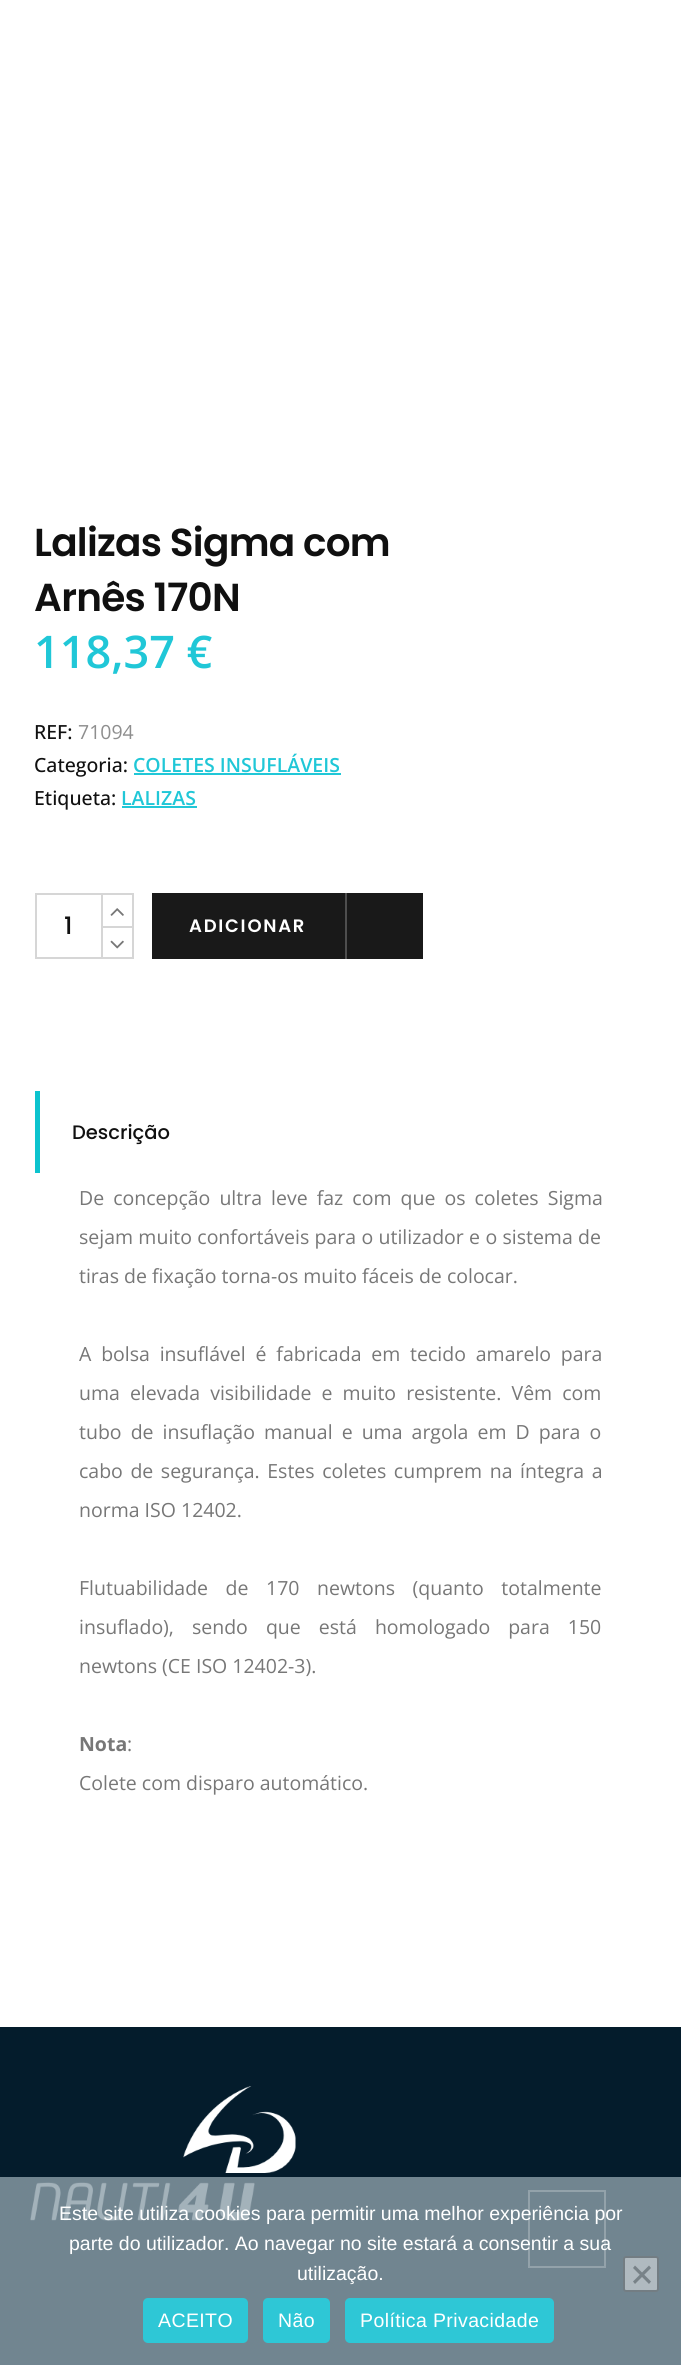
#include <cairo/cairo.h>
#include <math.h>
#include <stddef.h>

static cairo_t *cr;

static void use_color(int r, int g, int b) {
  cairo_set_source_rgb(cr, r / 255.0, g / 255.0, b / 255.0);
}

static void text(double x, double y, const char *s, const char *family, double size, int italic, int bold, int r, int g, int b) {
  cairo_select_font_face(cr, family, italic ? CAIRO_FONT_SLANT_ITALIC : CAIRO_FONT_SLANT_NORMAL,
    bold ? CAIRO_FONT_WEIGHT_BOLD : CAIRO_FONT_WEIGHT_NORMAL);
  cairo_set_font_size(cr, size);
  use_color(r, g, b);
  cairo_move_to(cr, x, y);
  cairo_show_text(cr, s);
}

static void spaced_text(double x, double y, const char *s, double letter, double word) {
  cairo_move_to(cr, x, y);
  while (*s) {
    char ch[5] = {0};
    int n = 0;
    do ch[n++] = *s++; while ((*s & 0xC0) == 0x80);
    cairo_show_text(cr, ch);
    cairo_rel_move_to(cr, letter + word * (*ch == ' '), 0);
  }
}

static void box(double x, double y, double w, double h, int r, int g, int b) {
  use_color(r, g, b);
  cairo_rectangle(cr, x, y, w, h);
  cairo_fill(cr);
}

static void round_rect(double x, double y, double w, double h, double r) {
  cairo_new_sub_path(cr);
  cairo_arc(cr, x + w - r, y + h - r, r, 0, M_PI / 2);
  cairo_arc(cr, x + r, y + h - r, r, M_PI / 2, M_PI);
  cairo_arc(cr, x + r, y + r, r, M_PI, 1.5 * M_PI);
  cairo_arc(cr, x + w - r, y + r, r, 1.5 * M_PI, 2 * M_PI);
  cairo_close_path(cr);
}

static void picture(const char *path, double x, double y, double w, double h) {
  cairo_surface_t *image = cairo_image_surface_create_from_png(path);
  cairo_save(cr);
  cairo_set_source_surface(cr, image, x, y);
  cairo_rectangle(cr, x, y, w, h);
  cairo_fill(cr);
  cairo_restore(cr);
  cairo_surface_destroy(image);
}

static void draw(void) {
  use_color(255, 255, 255);
  cairo_paint(cr);
  box(134, 773, 207, 2, 32, 199, 215);
  box(122, 806, 75, 2, 32, 199, 215);
  box(35, 893, 99, 2, 214, 214, 214);
  box(35, 957, 66, 2, 214, 214, 214);
  box(35, 893, 2, 66, 214, 214, 214);
  box(132, 893, 2, 33, 214, 214, 214);
  box(101, 893, 2, 33, 214, 214, 214);
  picture("img_01.png", 110, 908, 14, 8);
  cairo_rectangle(cr, 102, 927, 31, 31);
  cairo_stroke(cr);
  picture("img_02.png", 110, 940, 14, 9);
  box(152, 893, 271, 66, 25, 25, 25);
  box(345, 893, 2, 66, 78, 78, 78);
  box(35, 1091, 5, 82, 12, 195, 206);
  box(0, 2027, 681, 338, 4, 28, 44);
  picture("img_03.png", 30, 2086, 266, 135);
  cairo_rectangle(cr, 529, 2191, 76, 76);
  use_color(173, 173, 173);
  cairo_stroke(cr);
  cairo_set_source_rgba(cr, 0.549, 0.624, 0.663, 0.8);
  cairo_rectangle(cr, 0, 2177, 681, 188);
  cairo_fill(cr);
  use_color(176, 186, 192);
  round_rect(624, 2257, 34, 34, 2);
  cairo_fill_preserve(cr);
  use_color(115, 125, 131);
  cairo_stroke(cr);
  use_color(120, 130, 136);
  cairo_new_path(cr);
  cairo_move_to(cr, 649, 2265.5);
  cairo_line_to(cr, 651, 2268);
  cairo_line_to(cr, 635, 2284);
  cairo_line_to(cr, 633, 2281.5);
  cairo_close_path(cr);
  cairo_fill(cr);
  cairo_new_path(cr);
  cairo_move_to(cr, 633, 2268);
  cairo_line_to(cr, 635, 2265.5);
  cairo_line_to(cr, 651, 2281.5);
  cairo_line_to(cr, 649, 2284);
  cairo_close_path(cr);
  cairo_fill(cr);
  use_color(46, 199, 214);
  round_rect(143, 2298, 105, 45, 5);
  cairo_fill(cr);
  round_rect(263, 2298, 67, 45, 5);
  cairo_fill(cr);
  round_rect(345, 2298, 209, 45, 5);
  cairo_fill(cr);
  cairo_select_font_face(cr, "Poppins SemiBold", CAIRO_FONT_SLANT_NORMAL, CAIRO_FONT_WEIGHT_NORMAL);
  cairo_set_font_size(cr, 39);
  use_color(16, 16, 16);
  spaced_text(34, 556, "Lalizas Sigma com", -0.75, 0);
  spaced_text(34, 611, "Arnês 170N", -0.75, 0);
  text(34, 668, "118,37 €", "Open Sans SemiBold", 45, 0, 0, 32, 199, 215);
  text(34, 739, "REF:", "Open Sans Medium", 19.5, 0, 0, 16, 16, 16);
  text(78, 739, "71094", "Open Sans", 19.5, 0, 0, 142, 142, 142);
  text(34, 772, "Categoria:", "Open Sans Medium", 19.5, 0, 0, 16, 16, 16);
  text(133, 772, "COLETES INSUFLÁVEIS", "Open Sans SemiBold", 19.5, 0, 0, 32, 199, 215);
  text(34, 805, "Etiqueta:", "Open Sans Medium", 19.5, 0, 0, 16, 16, 16);
  text(121, 805, "LALIZAS", "Open Sans SemiBold", 19.5, 0, 0, 32, 199, 215);
  text(64, 934, "1", "Poppins Medium", 24, 0, 0, 16, 16, 16);
  cairo_select_font_face(cr, "Poppins SemiBold", CAIRO_FONT_SLANT_NORMAL, CAIRO_FONT_WEIGHT_NORMAL);
  cairo_set_font_size(cr, 18);
  use_color(255, 255, 255);
  spaced_text(189, 932, "ADICIONAR", 1.75, 0);
  text(72, 1139, "Descrição", "Poppins Medium", 19.5, 0, 0, 16, 16, 16);
  cairo_select_font_face(cr, "Open Sans", CAIRO_FONT_SLANT_NORMAL, CAIRO_FONT_WEIGHT_NORMAL);
  use_color(119, 119, 119);
  spaced_text(79, 1205, "De concepção ultra leve faz com que os coletes Sigma", 0, 4);
  spaced_text(79, 1244, "sejam muito confortáveis para o utilizador e o sistema de", 0, 0.25);
  text(79, 1283, "tiras de fixação torna-os muito fáceis de colocar.", "Open Sans", 19.5, 0, 0, 119, 119, 119);
  spaced_text(79, 1361, "A bolsa insuflável é fabricada em tecido amarelo para", 0, 4.75);
  spaced_text(79, 1400, "uma elevada visibilidade e muito resistente. Vêm com", 0, 5);
  spaced_text(79, 1439, "tubo de insuflação manual e uma argola em D para o", 0, 4);
  spaced_text(79, 1478, "cabo de segurança. Estes coletes cumprem na íntegra a", 0, 2.5);
  text(79, 1517, "norma ISO 12402.", "Open Sans", 19.5, 0, 0, 119, 119, 119);
  spaced_text(79, 1595, "Flutuabilidade de 170 newtons (quanto totalmente", 0, 12.5);
  spaced_text(79, 1634, "insuflado), sendo que está homologado para 150", 0, 13);
  text(79, 1673, "newtons (CE ISO 12402-3).", "Open Sans", 19.5, 0, 0, 119, 119, 119);
  text(79, 1751, "Nota", "Open Sans", 19.5, 0, 1, 119, 119, 119);
  text(127, 1751, ":", "Open Sans", 19.5, 0, 0, 119, 119, 119);
  text(79, 1790, "Colete com disparo automático.", "Open Sans", 19.5, 0, 0, 119, 119, 119);
  text(59, 2220, "Este site utiliza cookies para permitir uma melhor experiência por", "Liberation Sans", 19.5, 0, 0, 255, 255, 255);
  text(69, 2250, "parte do utilizador. Ao navegar no site estará a consentir a sua", "Liberation Sans", 19.5, 0, 0, 255, 255, 255);
  text(297, 2280, "utilização.", "Liberation Sans", 19.5, 0, 0, 255, 255, 255);
  spaced_text(158, 2327, "ACEITO", 0.4, 0);
  spaced_text(278, 2327, "Não", 0.4, 0);
  spaced_text(360, 2327, "Política Privacidade", 0.4, 0);
}

int main(void) {
  cairo_surface_t *surface = cairo_image_surface_create(CAIRO_FORMAT_RGB24, 681, 2365);
  cr = cairo_create(surface);
  cairo_font_options_t *options = cairo_font_options_create();
  cairo_font_options_set_hint_metrics(options, CAIRO_HINT_METRICS_OFF);
  cairo_font_options_set_hint_style(options, CAIRO_HINT_STYLE_NONE);
  cairo_set_font_options(cr, options);
  cairo_set_miter_limit(cr, 4);
  draw();
  cairo_surface_write_to_png(surface, "out.png");
  cairo_font_options_destroy(options);
  cairo_destroy(cr);
  cairo_surface_destroy(surface);
  return 0;
}
